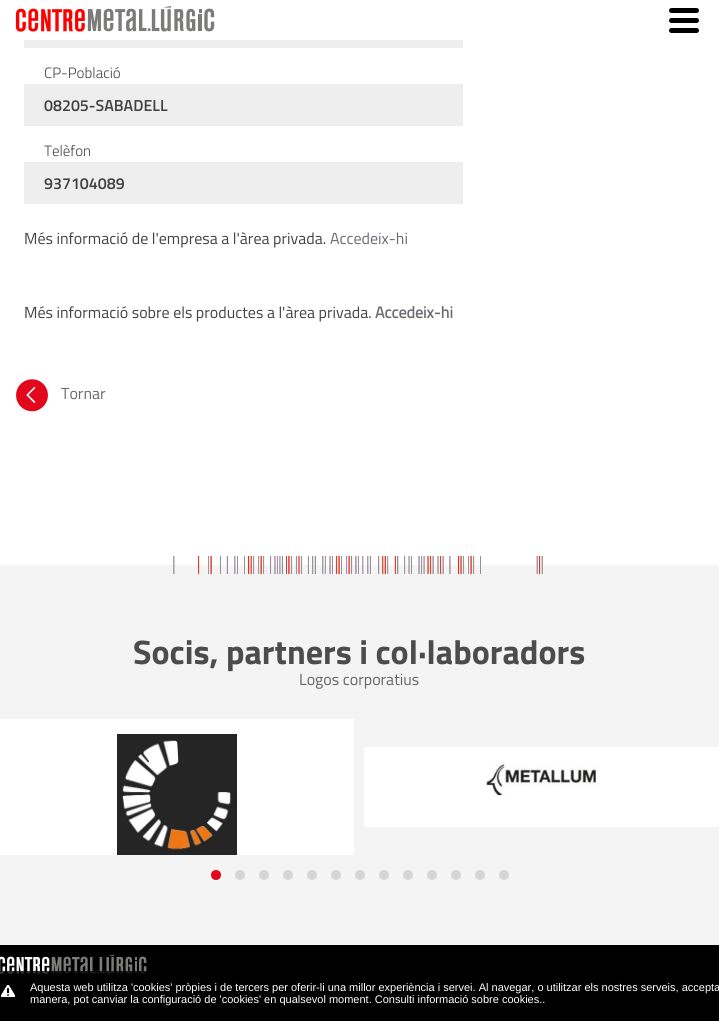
#include <cairo/cairo.h>
#include <math.h>
#include <stddef.h>

static cairo_t *cr;

static void use_color(int r, int g, int b) {
  cairo_set_source_rgb(cr, r / 255.0, g / 255.0, b / 255.0);
}

static void text(double x, double y, const char *s, const char *family, double size, int italic, int bold, int r, int g, int b) {
  cairo_select_font_face(cr, family, italic ? CAIRO_FONT_SLANT_ITALIC : CAIRO_FONT_SLANT_NORMAL,
    bold ? CAIRO_FONT_WEIGHT_BOLD : CAIRO_FONT_WEIGHT_NORMAL);
  cairo_set_font_size(cr, size);
  use_color(r, g, b);
  cairo_move_to(cr, x, y);
  cairo_show_text(cr, s);
}

static void box(double x, double y, double w, double h, int r, int g, int b) {
  use_color(r, g, b);
  cairo_rectangle(cr, x, y, w, h);
  cairo_fill(cr);
}

static void round_rect(double x, double y, double w, double h, double r) {
  cairo_new_sub_path(cr);
  cairo_arc(cr, x + w - r, y + h - r, r, 0, M_PI / 2);
  cairo_arc(cr, x + r, y + h - r, r, M_PI / 2, M_PI);
  cairo_arc(cr, x + r, y + r, r, M_PI, 1.5 * M_PI);
  cairo_arc(cr, x + w - r, y + r, r, 1.5 * M_PI, 2 * M_PI);
  cairo_close_path(cr);
}

static void picture(const char *path, double x, double y, double w, double h) {
  cairo_surface_t *image = cairo_image_surface_create_from_png(path);
  cairo_save(cr);
  cairo_set_source_surface(cr, image, x, y);
  cairo_rectangle(cr, x, y, w, h);
  cairo_fill(cr);
  cairo_restore(cr);
  cairo_surface_destroy(image);
}

static void draw(void) {
  use_color(255, 255, 255);
  cairo_paint(cr);
  picture("img_01.png", 15, 6, 200, 26);
  use_color(0, 0, 0);
  round_rect(669, 8, 30, 5, 2.5);
  cairo_fill(cr);
  round_rect(669, 18, 30, 5, 2.5);
  cairo_fill(cr);
  round_rect(669, 28, 30, 5, 2.5);
  cairo_fill(cr);
  box(24, 40, 439, 8, 238, 238, 238);
  box(24, 84, 439, 42, 238, 238, 238);
  box(24, 162, 439, 42, 238, 238, 238);
  picture("img_02.png", 16, 379, 32, 33);
  picture("img_03.png", 0, 556, 719, 18);
  box(0, 574, 719, 371, 244, 244, 244);
  box(0, 719, 354, 136, 255, 255, 255);
  picture("img_04.png", 117, 734, 120, 121);
  box(364, 747, 355, 80, 255, 255, 255);
  picture("img_05.png", 486, 763, 114, 33);
  use_color(226, 7, 28);
  cairo_arc(cr, 216, 875, 5, 0, 2 * M_PI);
  cairo_fill(cr);
  use_color(214, 214, 214);
  cairo_arc(cr, 240, 875, 5, 0, 2 * M_PI);
  cairo_fill(cr);
  cairo_arc(cr, 264, 875, 5, 0, 2 * M_PI);
  cairo_fill(cr);
  cairo_arc(cr, 288, 875, 5, 0, 2 * M_PI);
  cairo_fill(cr);
  cairo_arc(cr, 312, 875, 5, 0, 2 * M_PI);
  cairo_fill(cr);
  cairo_arc(cr, 336, 875, 5, 0, 2 * M_PI);
  cairo_fill(cr);
  cairo_arc(cr, 360, 875, 5, 0, 2 * M_PI);
  cairo_fill(cr);
  cairo_arc(cr, 384, 875, 5, 0, 2 * M_PI);
  cairo_fill(cr);
  cairo_arc(cr, 408, 875, 5, 0, 2 * M_PI);
  cairo_fill(cr);
  cairo_arc(cr, 432, 875, 5, 0, 2 * M_PI);
  cairo_fill(cr);
  cairo_arc(cr, 456, 875, 5, 0, 2 * M_PI);
  cairo_fill(cr);
  cairo_arc(cr, 480, 875, 5, 0, 2 * M_PI);
  cairo_fill(cr);
  cairo_arc(cr, 504, 875, 5, 0, 2 * M_PI);
  cairo_fill(cr);
  box(0, 945, 719, 76, 0, 0, 0);
  picture("img_06.png", 0, 954, 147, 20);
  cairo_set_source_rgba(cr, 0, 0, 0, 0.8);
  cairo_rectangle(cr, 0, 971, 147, 3);
  cairo_fill(cr);
  picture("img_07.png", 1, 985, 14, 12);
  text(44, 78, "CP-Població", "Titillium Web Light", 15, 0, 0, 67, 67, 67);
  text(44, 111, "08205-SABADELL", "Titillium Web SemiBold", 16, 0, 0, 67, 67, 67);
  text(44, 156, "Telèfon", "Titillium Web Light", 15, 0, 0, 67, 67, 67);
  text(44, 189, "937104089", "Titillium Web SemiBold", 16, 0, 0, 67, 67, 67);
  text(24, 244, "Més informació de l'empresa a l'àrea privada.", "Titillium Web", 16, 0, 0, 67, 67, 67);
  text(330, 244, "Accedeix-hi", "Titillium Web", 16, 0, 0, 108, 106, 114);
  text(24, 318, "Més informació sobre els productes a l'àrea privada.", "Titillium Web", 16, 0, 0, 67, 67, 67);
  text(375, 318, "Accedeix-hi", "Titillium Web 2", 16, 0, 1, 108, 106, 114);
  text(61, 399, "Tornar", "Titillium Web", 16, 0, 0, 108, 106, 114);
  text(133, 664, "Socis, partners i col·laboradors", "Titillium Web", 34, 0, 1, 76, 76, 76);
  text(299, 685, "Logos corporatius", "Titillium Web", 16, 0, 0, 101, 101, 101);
  text(30, 991, "Aquesta web utilitza 'cookies' pròpies i de tercers per oferir-li una millor experiència i servei. Al navegar, o utilitzar els nostres serveis, accepta", "Liberation Sans", 11, 0, 0, 255, 255, 255);
  text(30, 1003, "manera, pot canviar la configuració de 'cookies' en qualsevol moment. Consulti informació sobre cookies..", "Liberation Sans", 11, 0, 0, 255, 255, 255);
}

int main(void) {
  cairo_surface_t *surface = cairo_image_surface_create(CAIRO_FORMAT_RGB24, 719, 1021);
  cr = cairo_create(surface);
  cairo_font_options_t *options = cairo_font_options_create();
  cairo_font_options_set_hint_metrics(options, CAIRO_HINT_METRICS_OFF);
  cairo_font_options_set_hint_style(options, CAIRO_HINT_STYLE_NONE);
  cairo_set_font_options(cr, options);
  cairo_set_miter_limit(cr, 4);
  draw();
  cairo_surface_write_to_png(surface, "out.png");
  cairo_font_options_destroy(options);
  cairo_destroy(cr);
  cairo_surface_destroy(surface);
  return 0;
}
